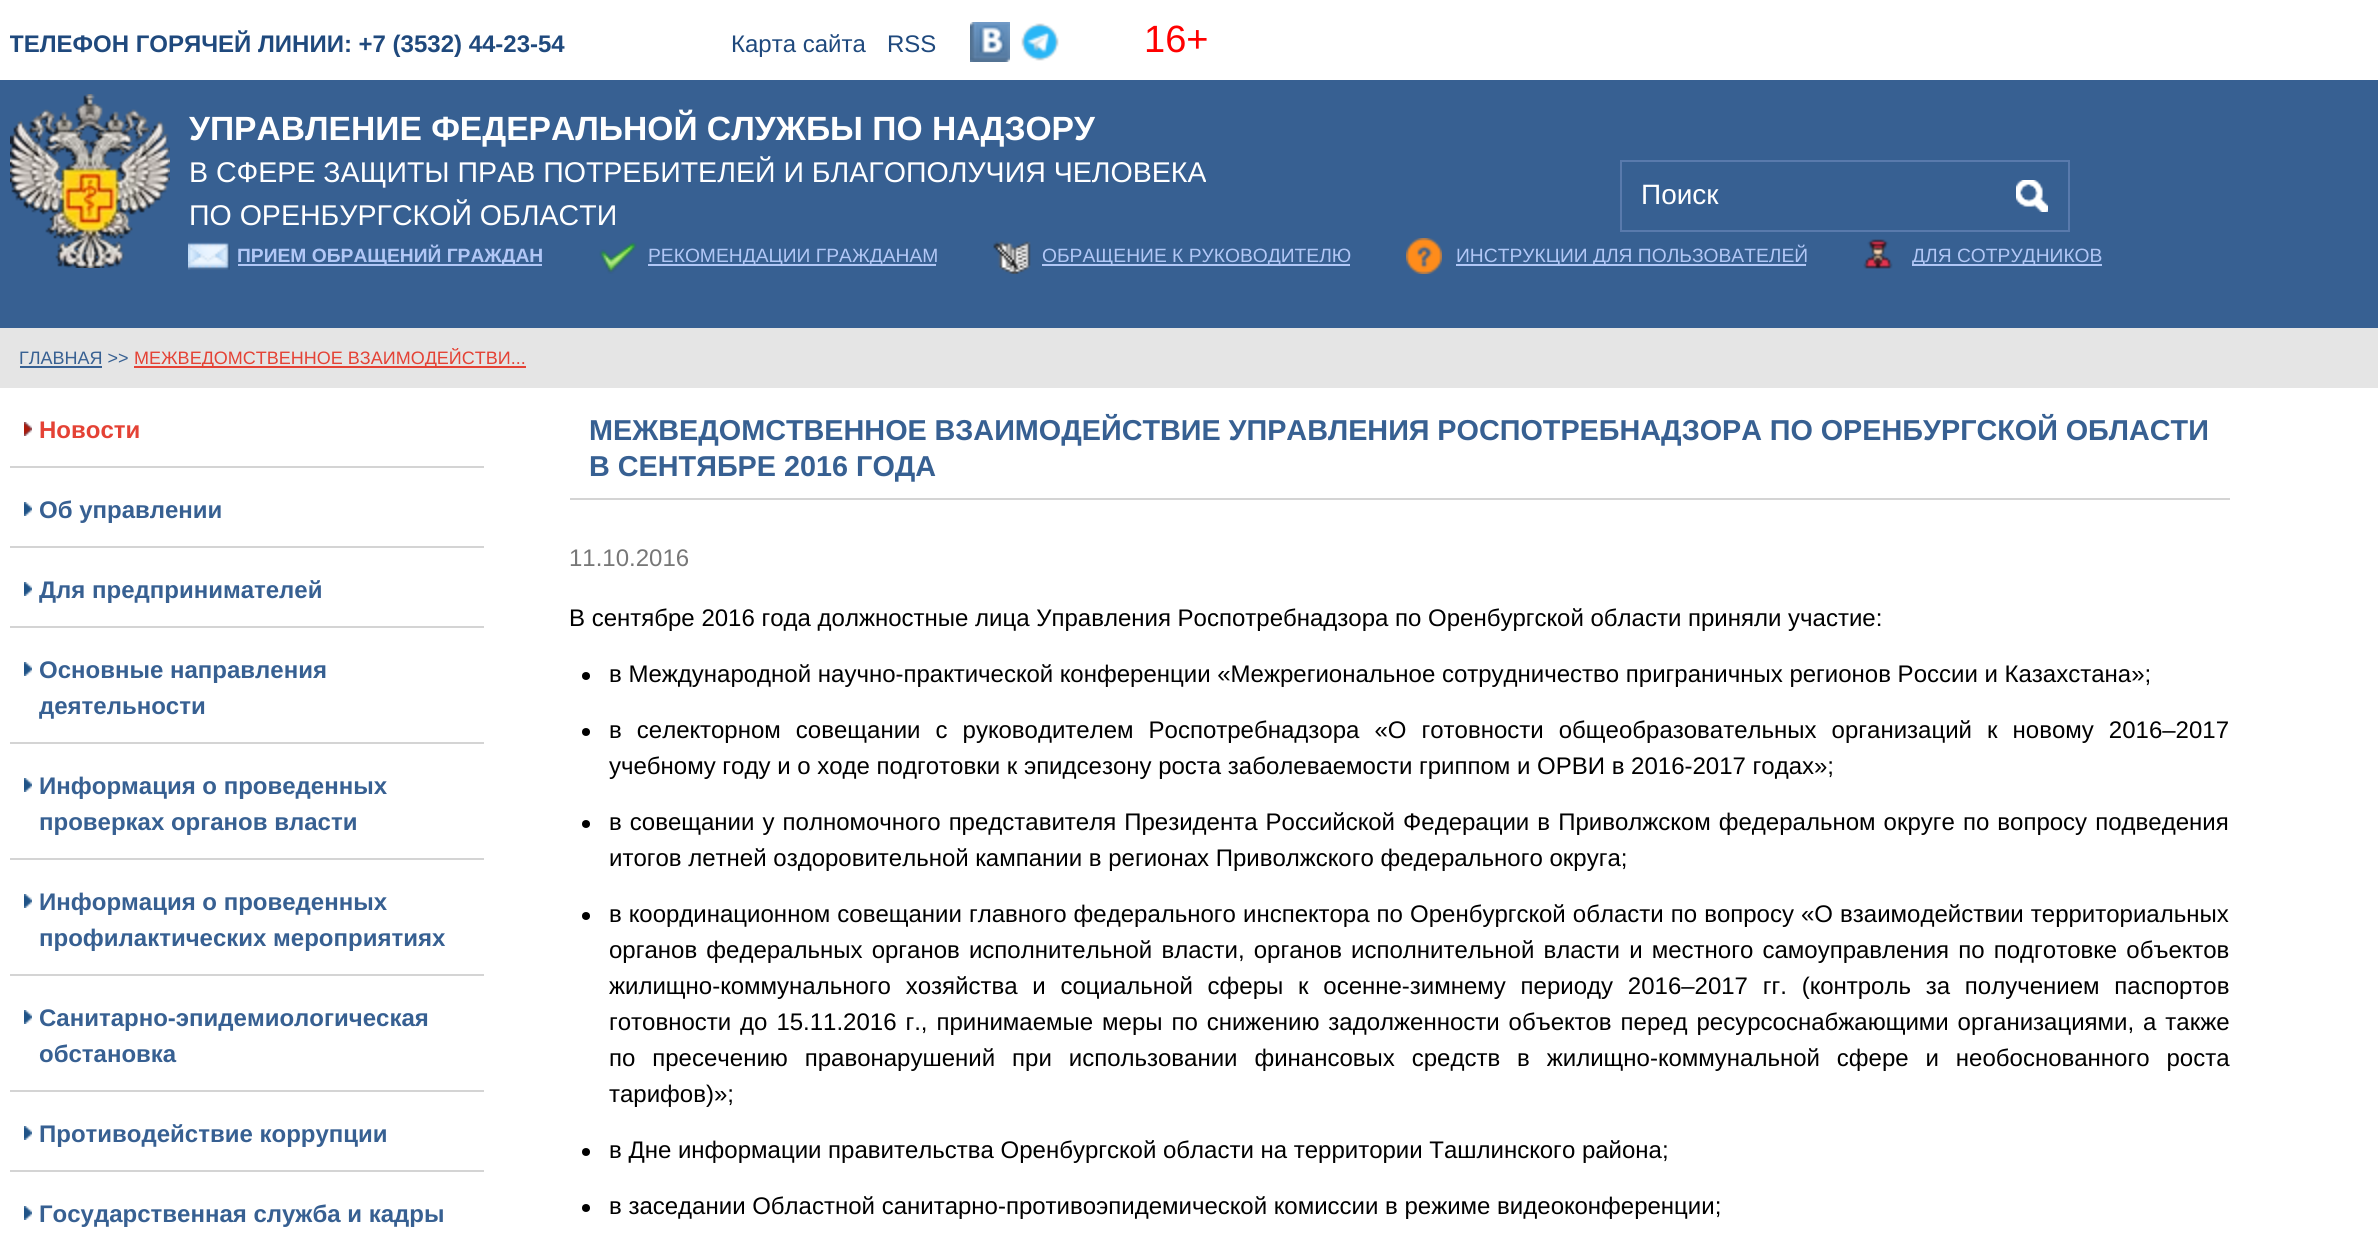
#include <cairo/cairo.h>
#include <math.h>
#include <stddef.h>

static cairo_t *cr;

static void use_color(int r, int g, int b) {
  cairo_set_source_rgb(cr, r / 255.0, g / 255.0, b / 255.0);
}

static void text(double x, double y, const char *s, const char *family, double size, int italic, int bold, int r, int g, int b) {
  cairo_select_font_face(cr, family, italic ? CAIRO_FONT_SLANT_ITALIC : CAIRO_FONT_SLANT_NORMAL,
    bold ? CAIRO_FONT_WEIGHT_BOLD : CAIRO_FONT_WEIGHT_NORMAL);
  cairo_set_font_size(cr, size);
  use_color(r, g, b);
  cairo_move_to(cr, x, y);
  cairo_show_text(cr, s);
}

static void spaced_text(double x, double y, const char *s, double letter, double word) {
  cairo_move_to(cr, x, y);
  while (*s) {
    char ch[5] = {0};
    int n = 0;
    do ch[n++] = *s++; while ((*s & 0xC0) == 0x80);
    cairo_show_text(cr, ch);
    cairo_rel_move_to(cr, letter + word * (*ch == ' '), 0);
  }
}

static void box(double x, double y, double w, double h, int r, int g, int b) {
  use_color(r, g, b);
  cairo_rectangle(cr, x, y, w, h);
  cairo_fill(cr);
}

static void picture(const char *path, double x, double y, double w, double h) {
  cairo_surface_t *image = cairo_image_surface_create_from_png(path);
  cairo_save(cr);
  cairo_set_source_surface(cr, image, x, y);
  cairo_rectangle(cr, x, y, w, h);
  cairo_fill(cr);
  cairo_restore(cr);
  cairo_surface_destroy(image);
}

static void draw(void) {
  use_color(255, 255, 255);
  cairo_paint(cr);
  picture("img_01.png", 970, 22, 40, 40);
  picture("img_02.png", 1021, 23, 38, 38);
  box(0, 80, 2378, 248, 55, 96, 146);
  picture("img_03.png", 10, 94, 160, 174);
  cairo_rectangle(cr, 1621, 161, 448, 70);
  use_color(89, 122, 172);
  cairo_stroke(cr);
  picture("img_04.png", 2016, 180, 32, 32);
  picture("img_05.png", 2016, 180, 32, 32);
  picture("img_06.png", 188, 242, 42, 28);
  box(238, 264, 304, 2, 177, 199, 246);
  picture("img_07.png", 599, 242, 38, 32);
  box(648, 264, 288, 2, 177, 199, 246);
  picture("img_08.png", 993, 241, 38, 33);
  box(1042, 264, 308, 2, 177, 199, 246);
  picture("img_09.png", 1406, 238, 36, 36);
  box(1456, 264, 350, 2, 177, 199, 246);
  picture("img_10.png", 1863, 239, 30, 30);
  box(1912, 264, 190, 2, 177, 199, 246);
  box(0, 328, 2378, 60, 229, 229, 229);
  box(20, 366, 82, 2, 55, 96, 146);
  box(134, 366, 392, 2, 228, 66, 53);
  picture("img_11.png", 24, 422, 8, 14);
  picture("img_12.png", 24, 422, 8, 14);
  box(10, 466, 474, 2, 212, 212, 212);
  picture("img_11.png", 24, 502, 8, 14);
  picture("img_13.png", 24, 502, 8, 14);
  box(10, 546, 474, 2, 212, 212, 212);
  picture("img_11.png", 24, 582, 8, 14);
  picture("img_13.png", 24, 582, 8, 14);
  box(10, 626, 474, 2, 212, 212, 212);
  picture("img_11.png", 24, 662, 8, 14);
  picture("img_13.png", 24, 662, 8, 14);
  box(10, 742, 474, 2, 212, 212, 212);
  picture("img_11.png", 24, 778, 8, 14);
  picture("img_13.png", 24, 778, 8, 14);
  box(10, 858, 474, 2, 212, 212, 212);
  picture("img_11.png", 24, 894, 8, 14);
  picture("img_13.png", 24, 894, 8, 14);
  box(10, 974, 474, 2, 212, 212, 212);
  picture("img_11.png", 24, 1010, 8, 14);
  picture("img_13.png", 24, 1010, 8, 14);
  box(10, 1090, 474, 2, 212, 212, 212);
  picture("img_11.png", 24, 1126, 8, 14);
  picture("img_13.png", 24, 1126, 8, 14);
  box(10, 1170, 474, 2, 212, 212, 212);
  picture("img_11.png", 24, 1206, 8, 14);
  picture("img_13.png", 24, 1206, 8, 14);
  box(570, 498, 1660, 2, 212, 212, 212);
  use_color(0, 0, 0);
  cairo_arc(cr, 586, 676, 4, 0, 2 * M_PI);
  cairo_fill(cr);
  cairo_arc(cr, 586, 732, 4, 0, 2 * M_PI);
  cairo_fill(cr);
  cairo_arc(cr, 586, 824, 4, 0, 2 * M_PI);
  cairo_fill(cr);
  cairo_arc(cr, 586, 916, 4, 0, 2 * M_PI);
  cairo_fill(cr);
  cairo_arc(cr, 586, 1152, 4, 0, 2 * M_PI);
  cairo_fill(cr);
  cairo_arc(cr, 586, 1208, 4, 0, 2 * M_PI);
  cairo_fill(cr);
  cairo_save(cr);
  cairo_rectangle(cr, 10, 0, 2220, 80);
  cairo_clip(cr);
  text(9, 52, "ТЕЛЕФОН ГОРЯЧЕЙ ЛИНИИ: +7 (3532) 44-23-54", "Liberation Sans", 24, 0, 1, 31, 73, 125);
  cairo_restore(cr);
  text(731, 52, "Карта сайта", "Liberation Sans", 24, 0, 0, 31, 73, 125);
  text(887, 52, "RSS", "Liberation Sans", 24, 0, 0, 31, 73, 125);
  text(1144, 52, "16+", "Liberation Sans", 38, 0, 0, 255, 0, 0);
  text(189, 140, "УПРАВЛЕНИЕ ФЕДЕРАЛЬНОЙ СЛУЖБЫ ПО НАДЗОРУ", "Liberation Sans", 33.6, 0, 1, 255, 255, 255);
  text(189, 182, "В СФЕРЕ ЗАЩИТЫ ПРАВ ПОТРЕБИТЕЛЕЙ И БЛАГОПОЛУЧИЯ ЧЕЛОВЕКА", "Liberation Sans", 28.55, 0, 0, 255, 255, 255);
  text(189, 225, "ПО ОРЕНБУРГСКОЙ ОБЛАСТИ", "Liberation Sans", 28.55, 0, 0, 255, 255, 255);
  text(1641, 204, "Поиск", "Liberation Sans", 28, 0, 0, 255, 255, 255);
  text(237, 262, "ПРИЕМ ОБРАЩЕНИЙ ГРАЖДАН", "Liberation Sans", 19.25, 0, 1, 177, 199, 246);
  text(648, 262, "РЕКОМЕНДАЦИИ ГРАЖДАНАМ", "Liberation Sans", 19.25, 0, 0, 177, 199, 246);
  text(1042, 262, "ОБРАЩЕНИЕ К РУКОВОДИТЕЛЮ", "Liberation Sans", 19.25, 0, 0, 177, 199, 246);
  text(1456, 262, "ИНСТРУКЦИИ ДЛЯ ПОЛЬЗОВАТЕЛЕЙ", "Liberation Sans", 19.25, 0, 0, 177, 199, 246);
  text(1912, 262, "ДЛЯ СОТРУДНИКОВ", "Liberation Sans", 19.25, 0, 0, 177, 199, 246);
  text(19, 364, "ГЛАВНАЯ >>", "Liberation Sans", 18, 0, 0, 55, 96, 146);
  cairo_save(cr);
  cairo_rectangle(cr, 20, 348, 2210, 42);
  cairo_clip(cr);
  text(134, 364, "МЕЖВЕДОМСТВЕННОЕ ВЗАИМОДЕЙСТВИ...", "Liberation Sans", 18, 0, 0, 228, 66, 53);
  cairo_restore(cr);
  text(39, 438, "Новости", "Liberation Sans", 24, 0, 1, 228, 66, 53);
  text(39, 518, "Об управлении", "Liberation Sans", 24, 0, 1, 55, 96, 146);
  text(39, 598, "Для предпринимателей", "Liberation Sans", 24, 0, 1, 55, 96, 146);
  text(39, 678, "Основные направления", "Liberation Sans", 24, 0, 1, 55, 96, 146);
  text(39, 714, "деятельности", "Liberation Sans", 24, 0, 1, 55, 96, 146);
  text(39, 794, "Информация о проведенных", "Liberation Sans", 24, 0, 1, 55, 96, 146);
  text(39, 830, "проверках органов власти", "Liberation Sans", 24, 0, 1, 55, 96, 146);
  text(39, 910, "Информация о проведенных", "Liberation Sans", 24, 0, 1, 55, 96, 146);
  text(39, 946, "профилактических мероприятиях", "Liberation Sans", 24, 0, 1, 55, 96, 146);
  text(39, 1026, "Санитарно-эпидемиологическая", "Liberation Sans", 24, 0, 1, 55, 96, 146);
  text(39, 1062, "обстановка", "Liberation Sans", 24, 0, 1, 55, 96, 146);
  text(39, 1142, "Противодействие коррупции", "Liberation Sans", 24, 0, 1, 55, 96, 146);
  text(39, 1222, "Государственная служба и кадры", "Liberation Sans", 24, 0, 1, 55, 96, 146);
  cairo_set_font_size(cr, 28.8);
  spaced_text(589, 440, "МЕЖВЕДОМСТВЕННОЕ ВЗАИМОДЕЙСТВИЕ УПРАВЛЕНИЯ РОСПОТРЕБНАДЗОРА ПО ОРЕНБУРГСКОЙ ОБЛАСТИ", 0, -0.25);
  text(589, 476, "В СЕНТЯБРЕ 2016 ГОДА", "Liberation Sans", 28.8, 0, 1, 55, 96, 146);
  text(569, 566, "11.10.2016", "Liberation Sans", 24, 0, 0, 119, 119, 119);
  text(569, 626, "В сентябре 2016 года должностные лица Управления Роспотребнадзора по Оренбургской области приняли участие:", "Liberation Sans", 24, 0, 0, 0, 0, 0);
  text(609, 682, "в Международной научно-практической конференции «Межрегиональное сотрудничество приграничных регионов России и Казахстана»;", "Liberation Sans", 24, 0, 0, 0, 0, 0);
  spaced_text(609, 738, "в селекторном совещании с руководителем Роспотребнадзора «О готовности общеобразовательных организаций к новому 2016–2017", 0, 8.4);
  text(609, 774, "учебному году и о ходе подготовки к эпидсезону роста заболеваемости гриппом и ОРВИ в 2016-2017 годах»;", "Liberation Sans", 24, 0, 0, 0, 0, 0);
  spaced_text(609, 830, "в совещании у полномочного представителя Президента Российской Федерации в Приволжском федеральном округе по вопросу подведения", 0, 1.4);
  text(609, 866, "итогов летней оздоровительной кампании в регионах Приволжского федерального округа;", "Liberation Sans", 24, 0, 0, 0, 0, 0);
  spaced_text(609, 922, "в координационном совещании главного федерального инспектора по Оренбургской области по вопросу «О взаимодействии территориальных", 0, 0.4);
  spaced_text(609, 958, "органов федеральных органов исполнительной власти, органов исполнительной власти и местного самоуправления по подготовке объектов", 0, 2.5);
  spaced_text(609, 994, "жилищно-коммунального хозяйства и социальной сферы к осенне-зимнему периоду 2016–2017 гг. (контроль за получением паспортов", 0, 8.1);
  spaced_text(609, 1030, "готовности до 15.11.2016 г., принимаемые меры по снижению задолженности объектов перед ресурсоснабжающими организациями, а также", 0, 2.25);
  spaced_text(609, 1066, "по пресечению правонарушений при использовании финансовых средств в жилищно-коммунальной сфере и необоснованного роста", 0, 10.25);
  text(609, 1102, "тарифов)»;", "Liberation Sans", 24, 0, 0, 0, 0, 0);
  text(609, 1158, "в Дне информации правительства Оренбургской области на территории Ташлинского района;", "Liberation Sans", 24, 0, 0, 0, 0, 0);
  text(609, 1214, "в заседании Областной санитарно-противоэпидемической комиссии в режиме видеоконференции;", "Liberation Sans", 24, 0, 0, 0, 0, 0);
}

int main(void) {
  cairo_surface_t *surface = cairo_image_surface_create(CAIRO_FORMAT_RGB24, 2378, 1234);
  cr = cairo_create(surface);
  cairo_font_options_t *options = cairo_font_options_create();
  cairo_font_options_set_hint_metrics(options, CAIRO_HINT_METRICS_OFF);
  cairo_font_options_set_hint_style(options, CAIRO_HINT_STYLE_NONE);
  cairo_set_font_options(cr, options);
  cairo_set_miter_limit(cr, 4);
  draw();
  cairo_surface_write_to_png(surface, "out.png");
  cairo_font_options_destroy(options);
  cairo_destroy(cr);
  cairo_surface_destroy(surface);
  return 0;
}
